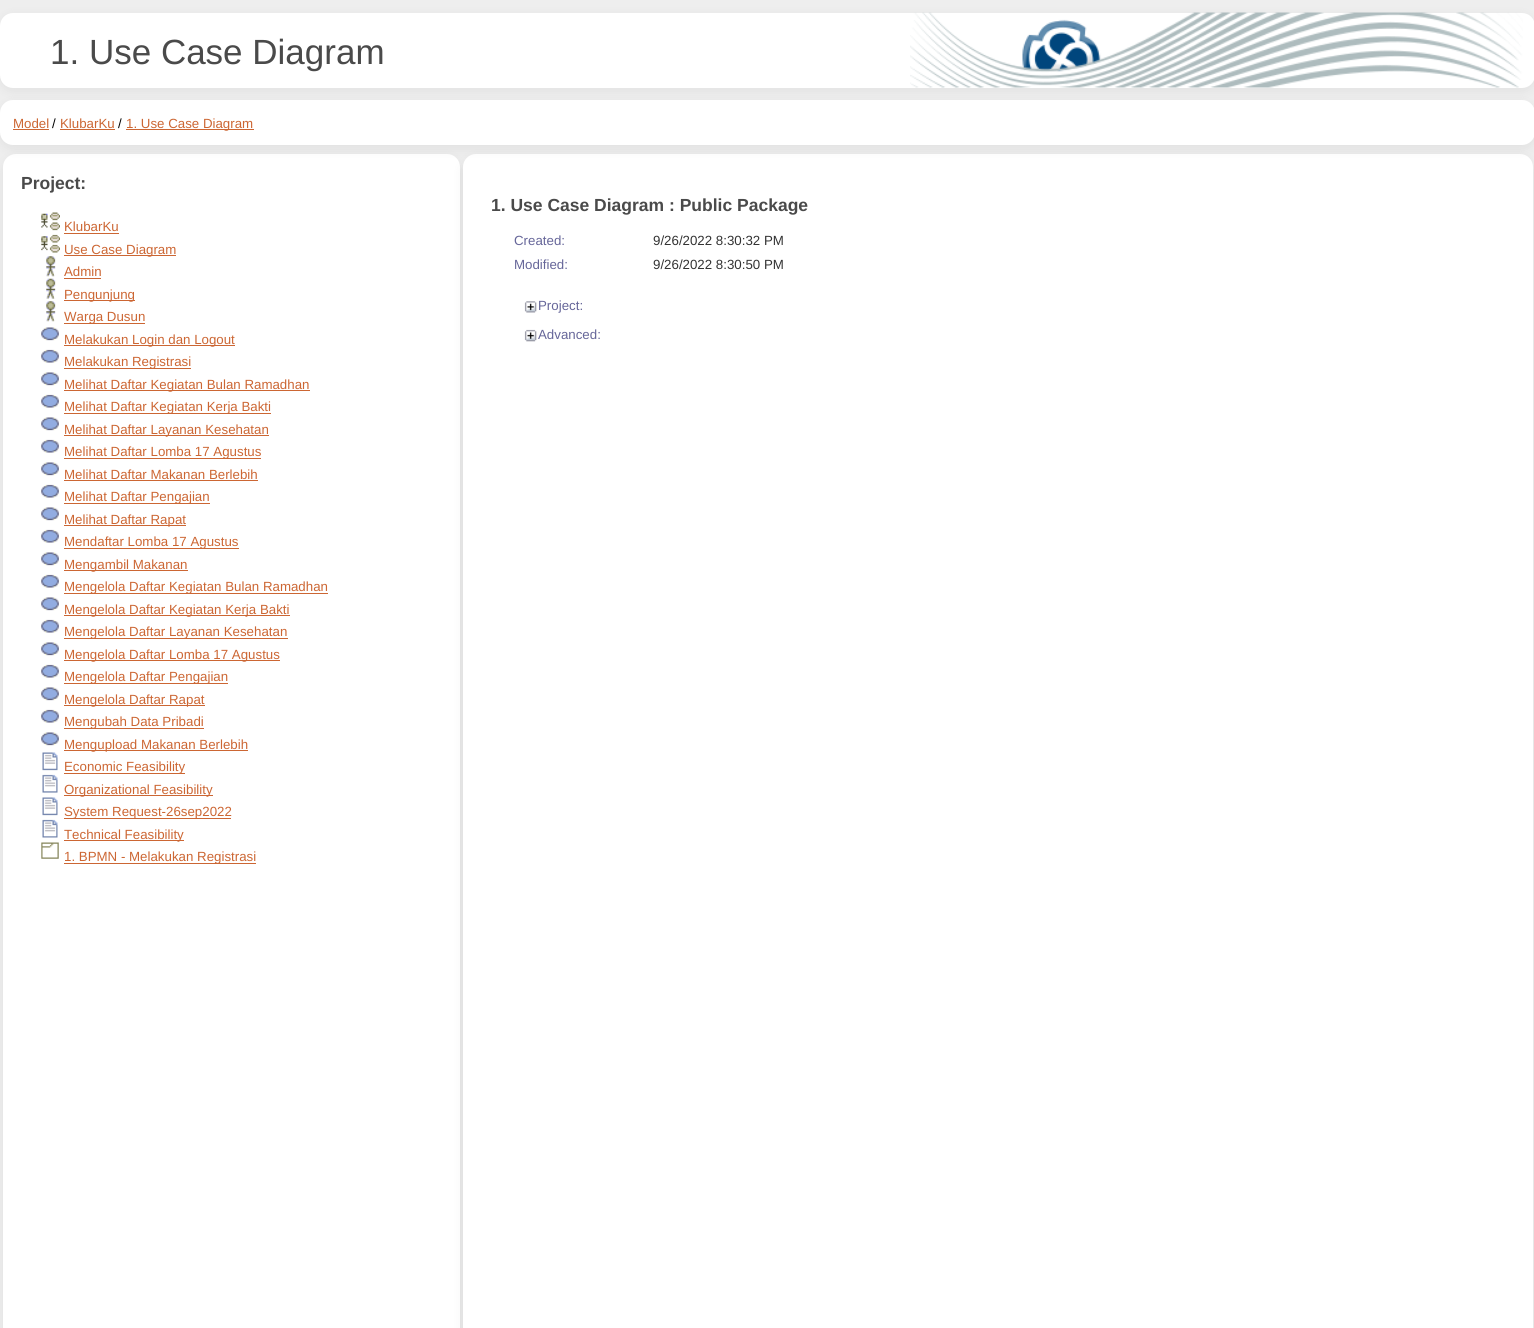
#include <cairo/cairo.h>
#include <math.h>
#include <stddef.h>

static cairo_t *cr;

static void use_color(int r, int g, int b) {
  cairo_set_source_rgb(cr, r / 255.0, g / 255.0, b / 255.0);
}

static void text(double x, double y, const char *s, const char *family, double size, int italic, int bold, int r, int g, int b) {
  cairo_select_font_face(cr, family, italic ? CAIRO_FONT_SLANT_ITALIC : CAIRO_FONT_SLANT_NORMAL,
    bold ? CAIRO_FONT_WEIGHT_BOLD : CAIRO_FONT_WEIGHT_NORMAL);
  cairo_set_font_size(cr, size);
  use_color(r, g, b);
  cairo_move_to(cr, x, y);
  cairo_show_text(cr, s);
}

static void box(double x, double y, double w, double h, int r, int g, int b) {
  use_color(r, g, b);
  cairo_rectangle(cr, x, y, w, h);
  cairo_fill(cr);
}

static void round_rect(double x, double y, double w, double h, double r) {
  cairo_new_sub_path(cr);
  cairo_arc(cr, x + w - r, y + h - r, r, 0, M_PI / 2);
  cairo_arc(cr, x + r, y + h - r, r, M_PI / 2, M_PI);
  cairo_arc(cr, x + r, y + r, r, M_PI, 1.5 * M_PI);
  cairo_arc(cr, x + w - r, y + r, r, 1.5 * M_PI, 2 * M_PI);
  cairo_close_path(cr);
}

static void shadow(double x, double y, double w, double h, double r, double blur, double alpha) {
  cairo_push_group_with_content(cr, CAIRO_CONTENT_ALPHA);
  cairo_set_operator(cr, CAIRO_OPERATOR_SOURCE);
  for (int i = 15; i >= -15 && fmin(w, h) + blur * i / 3 > 0; i -= 2) {
    double e = blur * i / 6;
    cairo_set_source_rgba(cr, 0, 0, 0, alpha * erfc((i - 1) / 8.5) / 2);
    round_rect(x - e, y - e, w + 2 * e, h + 2 * e, fmax(0, fmin(r + e + blur * .6, fmin(w, h) / 2 + e)));
    cairo_fill(cr);
  }
  cairo_pattern_t *soft = cairo_pop_group(cr);
  cairo_mask(cr, soft);
  cairo_pattern_destroy(soft);
}

static void picture(const char *path, double x, double y, double w, double h) {
  cairo_surface_t *image = cairo_image_surface_create_from_png(path);
  cairo_save(cr);
  cairo_set_source_surface(cr, image, x, y);
  cairo_rectangle(cr, x, y, w, h);
  cairo_fill(cr);
  cairo_restore(cr);
  cairo_surface_destroy(image);
}

static void draw(void) {
  use_color(238, 238, 238);
  cairo_paint(cr);
  use_color(0, 0, 0);
  shadow(0, 16, 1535, 75, 13, 6, 0.06);
  use_color(255, 255, 255);
  round_rect(0, 13, 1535, 75, 13);
  cairo_fill(cr);
  picture("img_01.png", 910, 12, 613, 76);
  use_color(0, 0, 0);
  shadow(3, 158, 457, 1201, 13, 6, 0.06);
  use_color(255, 255, 255);
  round_rect(3, 154, 457, 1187, 13);
  cairo_fill(cr);
  use_color(0, 0, 0);
  shadow(463, 158, 1070, 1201, 13, 6, 0.06);
  use_color(255, 255, 255);
  round_rect(463, 154, 1070, 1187, 13);
  cairo_fill(cr);
  use_color(0, 0, 0);
  shadow(0, 104, 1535, 45, 13, 6, 0.06);
  use_color(255, 255, 255);
  round_rect(0, 100, 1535, 45, 13);
  cairo_fill(cr);
  box(13, 129, 36, 1, 204, 102, 51);
  box(60, 129, 55, 1, 204, 102, 51);
  box(126, 129, 128, 1, 204, 102, 51);
  picture("img_02.png", 41, 212, 19, 19);
  box(64, 233, 55, 1, 204, 102, 51);
  picture("img_03.png", 41, 234, 19, 19);
  box(64, 255, 112, 1, 204, 102, 51);
  picture("img_04.png", 46, 256, 10, 21);
  box(64, 278, 37, 1, 204, 102, 51);
  picture("img_05.png", 46, 278, 10, 21);
  box(64, 300, 71, 1, 204, 102, 51);
  picture("img_06.png", 46, 301, 10, 21);
  box(64, 323, 81, 1, 204, 102, 51);
  picture("img_07.png", 41, 327, 18, 14);
  box(64, 345, 171, 1, 204, 102, 51);
  picture("img_08.png", 41, 349, 18, 14);
  box(64, 368, 127, 1, 204, 102, 51);
  picture("img_07.png", 41, 372, 18, 14);
  box(64, 390, 246, 1, 204, 102, 51);
  picture("img_08.png", 41, 394, 18, 14);
  box(64, 413, 207, 1, 204, 102, 51);
  picture("img_07.png", 41, 417, 18, 14);
  box(64, 435, 205, 1, 204, 102, 51);
  picture("img_08.png", 41, 439, 18, 14);
  box(64, 458, 197, 1, 204, 102, 51);
  picture("img_07.png", 41, 462, 18, 14);
  box(64, 480, 194, 1, 204, 102, 51);
  picture("img_08.png", 41, 484, 18, 14);
  box(64, 503, 146, 1, 204, 102, 51);
  picture("img_07.png", 41, 507, 18, 14);
  box(64, 525, 122, 1, 204, 102, 51);
  picture("img_08.png", 41, 529, 18, 14);
  box(64, 548, 175, 1, 204, 102, 51);
  picture("img_07.png", 41, 552, 18, 14);
  box(64, 570, 124, 1, 204, 102, 51);
  picture("img_08.png", 41, 574, 18, 14);
  box(64, 593, 264, 1, 204, 102, 51);
  picture("img_07.png", 41, 597, 18, 14);
  box(64, 615, 226, 1, 204, 102, 51);
  picture("img_08.png", 41, 619, 18, 14);
  box(64, 638, 224, 1, 204, 102, 51);
  picture("img_07.png", 41, 642, 18, 14);
  box(64, 660, 216, 1, 204, 102, 51);
  picture("img_08.png", 41, 664, 18, 14);
  box(64, 683, 164, 1, 204, 102, 51);
  picture("img_07.png", 41, 687, 18, 14);
  box(64, 705, 141, 1, 204, 102, 51);
  picture("img_08.png", 41, 709, 18, 14);
  box(64, 728, 140, 1, 204, 102, 51);
  picture("img_07.png", 41, 732, 18, 14);
  box(64, 750, 184, 1, 204, 102, 51);
  picture("img_09.png", 42, 752, 16, 19);
  box(64, 773, 121, 1, 204, 102, 51);
  picture("img_10.png", 42, 774, 16, 19);
  box(64, 795, 149, 1, 204, 102, 51);
  picture("img_09.png", 42, 797, 16, 19);
  box(64, 818, 167, 1, 204, 102, 51);
  picture("img_11.png", 42, 819, 16, 19);
  box(64, 840, 120, 1, 204, 102, 51);
  picture("img_12.png", 41, 842, 18, 17);
  box(64, 863, 192, 1, 204, 102, 51);
  picture("img_13.png", 524, 301, 13, 12);
  picture("img_14.png", 524, 329, 13, 13);
  text(50, 64, "1. Use Case Diagram", "Liberation Sans", 35, 0, 0, 74, 74, 74);
  text(13, 128, "Model", "Liberation Sans", 13.3, 0, 0, 204, 102, 51);
  text(52, 128, "/", "Liberation Sans", 13.3, 0, 0, 0, 0, 0);
  text(60, 128, "KlubarKu", "Liberation Sans", 13.3, 0, 0, 204, 102, 51);
  text(118, 128, "/", "Liberation Sans", 13.3, 0, 0, 0, 0, 0);
  text(126, 128, "1. Use Case Diagram", "Liberation Sans", 13.3, 0, 0, 204, 102, 51);
  text(21, 189, "Project:", "Liberation Sans", 17.5, 0, 1, 74, 74, 74);
  text(64, 231, "KlubarKu", "Liberation Sans", 13.3, 0, 0, 204, 102, 51);
  text(64, 254, "Use Case Diagram", "Liberation Sans", 13.3, 0, 0, 204, 102, 51);
  text(64, 276, "Admin", "Liberation Sans", 13.3, 0, 0, 204, 102, 51);
  text(64, 299, "Pengunjung", "Liberation Sans", 13.3, 0, 0, 204, 102, 51);
  text(64, 321, "Warga Dusun", "Liberation Sans", 13.3, 0, 0, 204, 102, 51);
  text(64, 344, "Melakukan Login dan Logout", "Liberation Sans", 13.3, 0, 0, 204, 102, 51);
  text(64, 366, "Melakukan Registrasi", "Liberation Sans", 13.3, 0, 0, 204, 102, 51);
  text(64, 389, "Melihat Daftar Kegiatan Bulan Ramadhan", "Liberation Sans", 13.3, 0, 0, 204, 102, 51);
  text(64, 411, "Melihat Daftar Kegiatan Kerja Bakti", "Liberation Sans", 13.3, 0, 0, 204, 102, 51);
  text(64, 434, "Melihat Daftar Layanan Kesehatan", "Liberation Sans", 13.3, 0, 0, 204, 102, 51);
  text(64, 456, "Melihat Daftar Lomba 17 Agustus", "Liberation Sans", 13.3, 0, 0, 204, 102, 51);
  text(64, 479, "Melihat Daftar Makanan Berlebih", "Liberation Sans", 13.3, 0, 0, 204, 102, 51);
  text(64, 501, "Melihat Daftar Pengajian", "Liberation Sans", 13.3, 0, 0, 204, 102, 51);
  text(64, 524, "Melihat Daftar Rapat", "Liberation Sans", 13.3, 0, 0, 204, 102, 51);
  text(64, 546, "Mendaftar Lomba 17 Agustus", "Liberation Sans", 13.3, 0, 0, 204, 102, 51);
  text(64, 569, "Mengambil Makanan", "Liberation Sans", 13.3, 0, 0, 204, 102, 51);
  text(64, 591, "Mengelola Daftar Kegiatan Bulan Ramadhan", "Liberation Sans", 13.3, 0, 0, 204, 102, 51);
  text(64, 614, "Mengelola Daftar Kegiatan Kerja Bakti", "Liberation Sans", 13.3, 0, 0, 204, 102, 51);
  text(64, 636, "Mengelola Daftar Layanan Kesehatan", "Liberation Sans", 13.3, 0, 0, 204, 102, 51);
  text(64, 659, "Mengelola Daftar Lomba 17 Agustus", "Liberation Sans", 13.3, 0, 0, 204, 102, 51);
  text(64, 681, "Mengelola Daftar Pengajian", "Liberation Sans", 13.3, 0, 0, 204, 102, 51);
  text(64, 704, "Mengelola Daftar Rapat", "Liberation Sans", 13.3, 0, 0, 204, 102, 51);
  text(64, 726, "Mengubah Data Pribadi", "Liberation Sans", 13.3, 0, 0, 204, 102, 51);
  text(64, 749, "Mengupload Makanan Berlebih", "Liberation Sans", 13.3, 0, 0, 204, 102, 51);
  text(64, 771, "Economic Feasibility", "Liberation Sans", 13.3, 0, 0, 204, 102, 51);
  text(64, 794, "Organizational Feasibility", "Liberation Sans", 13.3, 0, 0, 204, 102, 51);
  text(64, 816, "System Request-26sep2022", "Liberation Sans", 13.3, 0, 0, 204, 102, 51);
  text(64, 839, "Technical Feasibility", "Liberation Sans", 13.3, 0, 0, 204, 102, 51);
  text(64, 861, "1. BPMN - Melakukan Registrasi", "Liberation Sans", 13.3, 0, 0, 204, 102, 51);
  text(491, 211, "1. Use Case Diagram : Public Package", "Liberation Sans", 17.5, 0, 1, 74, 74, 74);
  text(514, 245, "Created:", "Liberation Sans", 13.3, 0, 0, 102, 102, 153);
  text(653, 245, "9/26/2022 8:30:32 PM", "Liberation Sans", 13.3, 0, 0, 51, 51, 51);
  text(514, 269, "Modified:", "Liberation Sans", 13.3, 0, 0, 102, 102, 153);
  text(653, 269, "9/26/2022 8:30:50 PM", "Liberation Sans", 13.3, 0, 0, 51, 51, 51);
  text(538, 310, "Project:", "Liberation Sans", 13.3, 0, 0, 102, 102, 153);
  text(538, 339, "Advanced:", "Liberation Sans", 13.3, 0, 0, 102, 102, 153);
}

int main(void) {
  cairo_surface_t *surface = cairo_image_surface_create(CAIRO_FORMAT_RGB24, 1534, 1328);
  cr = cairo_create(surface);
  cairo_font_options_t *options = cairo_font_options_create();
  cairo_font_options_set_hint_metrics(options, CAIRO_HINT_METRICS_OFF);
  cairo_font_options_set_hint_style(options, CAIRO_HINT_STYLE_NONE);
  cairo_set_font_options(cr, options);
  cairo_set_miter_limit(cr, 4);
  draw();
  cairo_surface_write_to_png(surface, "out.png");
  cairo_font_options_destroy(options);
  cairo_destroy(cr);
  cairo_surface_destroy(surface);
  return 0;
}
